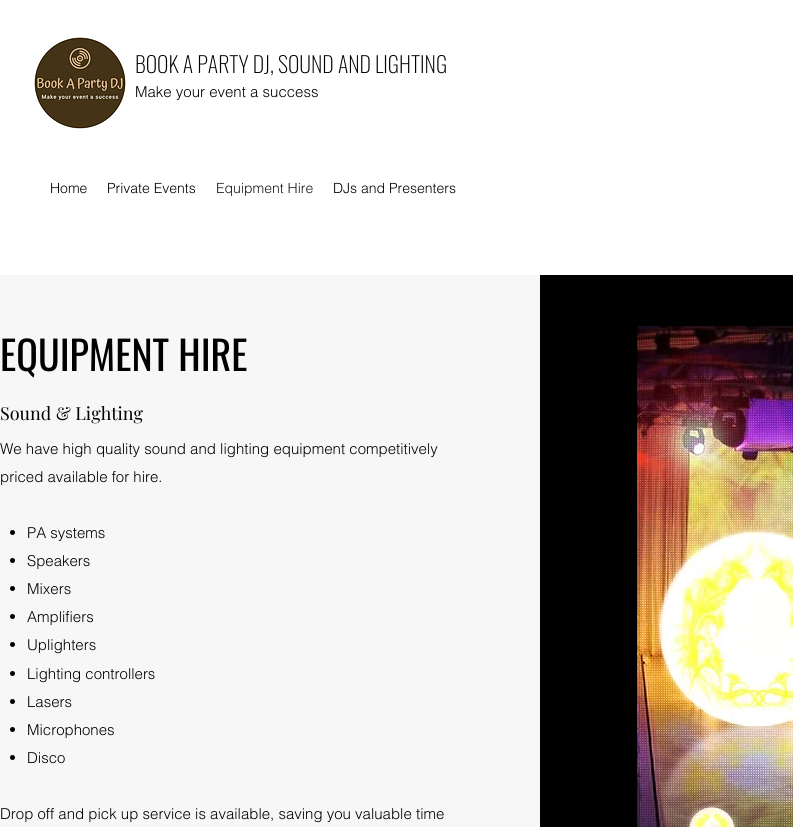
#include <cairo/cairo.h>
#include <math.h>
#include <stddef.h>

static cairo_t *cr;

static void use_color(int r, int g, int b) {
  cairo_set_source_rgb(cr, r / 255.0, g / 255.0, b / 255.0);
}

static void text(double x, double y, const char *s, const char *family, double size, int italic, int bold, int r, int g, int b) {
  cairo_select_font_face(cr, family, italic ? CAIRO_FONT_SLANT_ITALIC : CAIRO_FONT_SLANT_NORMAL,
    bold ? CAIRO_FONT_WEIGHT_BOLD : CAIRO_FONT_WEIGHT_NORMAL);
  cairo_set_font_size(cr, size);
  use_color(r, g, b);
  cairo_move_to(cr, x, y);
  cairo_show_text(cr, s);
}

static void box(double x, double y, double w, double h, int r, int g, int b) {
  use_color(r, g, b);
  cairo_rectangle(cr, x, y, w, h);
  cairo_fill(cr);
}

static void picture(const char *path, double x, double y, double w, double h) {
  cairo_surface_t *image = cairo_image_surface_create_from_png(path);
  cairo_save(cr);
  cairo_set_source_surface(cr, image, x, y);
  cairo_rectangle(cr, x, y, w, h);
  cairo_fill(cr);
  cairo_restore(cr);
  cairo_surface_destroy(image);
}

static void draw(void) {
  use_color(247, 247, 247);
  cairo_paint(cr);
  box(0, 0, 793, 275, 255, 255, 255);
  picture("img_01.png", 34, 37, 92, 92);
  use_color(0, 0, 0);
  cairo_arc(cr, 12.5, 532.5, 2.5, 0, 2 * M_PI);
  cairo_fill(cr);
  cairo_arc(cr, 12.5, 560.5, 2.5, 0, 2 * M_PI);
  cairo_fill(cr);
  cairo_arc(cr, 12.5, 588.5, 2.5, 0, 2 * M_PI);
  cairo_fill(cr);
  cairo_arc(cr, 12.5, 616.5, 2.5, 0, 2 * M_PI);
  cairo_fill(cr);
  cairo_arc(cr, 12.5, 644.5, 2.5, 0, 2 * M_PI);
  cairo_fill(cr);
  cairo_arc(cr, 12.5, 673.5, 2.5, 0, 2 * M_PI);
  cairo_fill(cr);
  cairo_arc(cr, 12.5, 701.5, 2.5, 0, 2 * M_PI);
  cairo_fill(cr);
  cairo_arc(cr, 12.5, 729.5, 2.5, 0, 2 * M_PI);
  cairo_fill(cr);
  cairo_arc(cr, 12.5, 757.5, 2.5, 0, 2 * M_PI);
  cairo_fill(cr);
  box(540, 275, 253, 552, 0, 0, 0);
  picture("img_02.png", 637, 326, 156, 501);
  text(135, 73, "BOOK A PARTY DJ, SOUND AND LIGHTING", "Oswald ExtraLight", 22, 0, 0, 0, 0, 0);
  text(135, 97, "Make your event a success", "helvetica Light", 15, 0, 0, 0, 0, 0);
  text(50, 193, "Home", "helvetica Light", 14, 0, 0, 0, 0, 0);
  text(107, 193, "Private Events", "helvetica Light", 14, 0, 0, 0, 0, 0);
  text(216, 193, "Equipment Hire", "helvetica Light", 14, 0, 0, 25, 25, 25);
  text(333, 193, "DJs and Presenters", "helvetica Light", 14, 0, 0, 0, 0, 0);
  text(0, 371, "EQUIPMENT HIRE", "Oswald", 40, 0, 0, 0, 0, 0);
  text(0, 420, "Sound & Lighting", "Playfair Display", 18, 0, 0, 0, 0, 0);
  text(0, 454, "We have high quality sound and lighting equipment competitively", "helvetica Light", 15, 0, 0, 0, 0, 0);
  text(0, 482, "priced available for hire.", "helvetica Light", 15, 0, 0, 0, 0, 0);
  text(27, 538, "PA systems", "helvetica Light", 15, 0, 0, 0, 0, 0);
  text(27, 566, "Speakers", "helvetica Light", 15, 0, 0, 0, 0, 0);
  text(27, 594, "Mixers", "helvetica Light", 15, 0, 0, 0, 0, 0);
  text(27, 622, "Amplifiers", "helvetica Light", 15, 0, 0, 0, 0, 0);
  text(27, 650, "Uplighters", "helvetica Light", 15, 0, 0, 0, 0, 0);
  text(27, 679, "Lighting controllers", "helvetica Light", 15, 0, 0, 0, 0, 0);
  text(27, 707, "Lasers", "helvetica Light", 15, 0, 0, 0, 0, 0);
  text(27, 735, "Microphones", "helvetica Light", 15, 0, 0, 0, 0, 0);
  text(27, 763, "Disco", "helvetica Light", 15, 0, 0, 0, 0, 0);
  text(0, 819, "Drop off and pick up service is available, saving you valuable time", "helvetica Light", 15, 0, 0, 0, 0, 0);
}

int main(void) {
  cairo_surface_t *surface = cairo_image_surface_create(CAIRO_FORMAT_RGB24, 793, 827);
  cr = cairo_create(surface);
  cairo_font_options_t *options = cairo_font_options_create();
  cairo_font_options_set_hint_metrics(options, CAIRO_HINT_METRICS_OFF);
  cairo_font_options_set_hint_style(options, CAIRO_HINT_STYLE_NONE);
  cairo_set_font_options(cr, options);
  cairo_set_miter_limit(cr, 4);
  draw();
  cairo_surface_write_to_png(surface, "out.png");
  cairo_font_options_destroy(options);
  cairo_destroy(cr);
  cairo_surface_destroy(surface);
  return 0;
}
